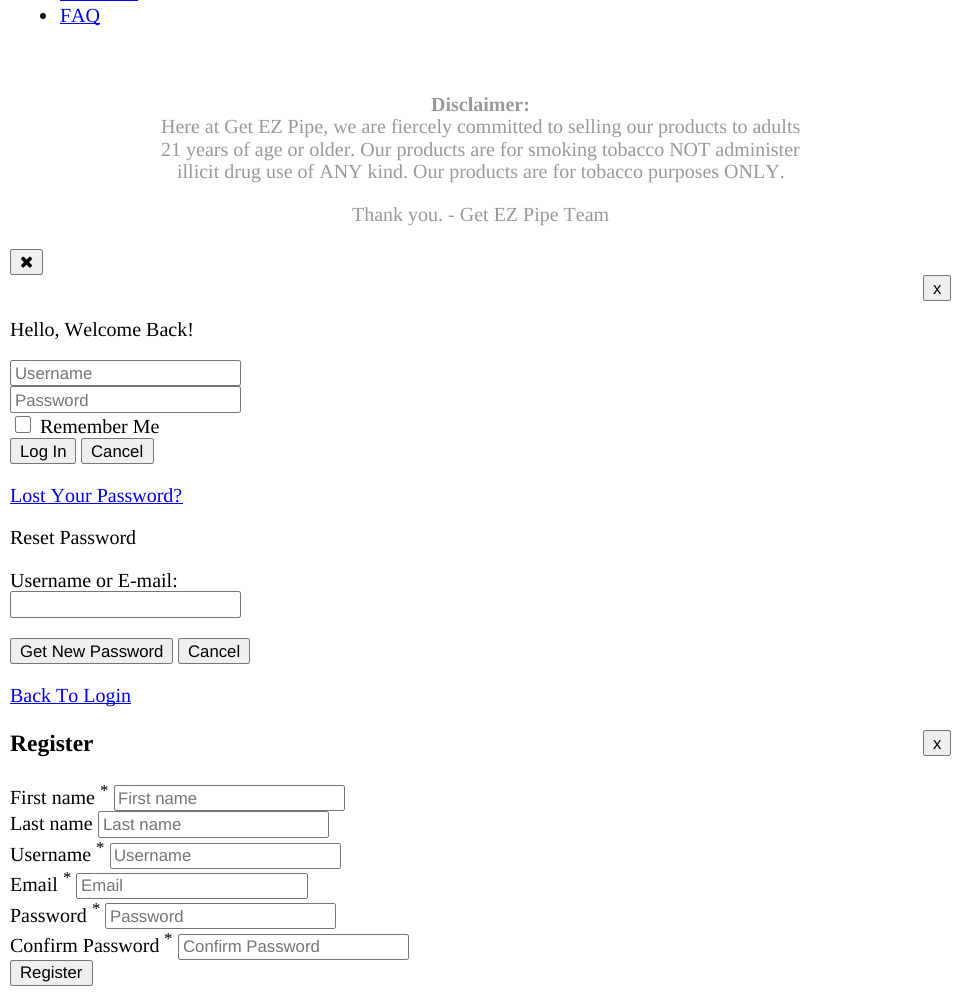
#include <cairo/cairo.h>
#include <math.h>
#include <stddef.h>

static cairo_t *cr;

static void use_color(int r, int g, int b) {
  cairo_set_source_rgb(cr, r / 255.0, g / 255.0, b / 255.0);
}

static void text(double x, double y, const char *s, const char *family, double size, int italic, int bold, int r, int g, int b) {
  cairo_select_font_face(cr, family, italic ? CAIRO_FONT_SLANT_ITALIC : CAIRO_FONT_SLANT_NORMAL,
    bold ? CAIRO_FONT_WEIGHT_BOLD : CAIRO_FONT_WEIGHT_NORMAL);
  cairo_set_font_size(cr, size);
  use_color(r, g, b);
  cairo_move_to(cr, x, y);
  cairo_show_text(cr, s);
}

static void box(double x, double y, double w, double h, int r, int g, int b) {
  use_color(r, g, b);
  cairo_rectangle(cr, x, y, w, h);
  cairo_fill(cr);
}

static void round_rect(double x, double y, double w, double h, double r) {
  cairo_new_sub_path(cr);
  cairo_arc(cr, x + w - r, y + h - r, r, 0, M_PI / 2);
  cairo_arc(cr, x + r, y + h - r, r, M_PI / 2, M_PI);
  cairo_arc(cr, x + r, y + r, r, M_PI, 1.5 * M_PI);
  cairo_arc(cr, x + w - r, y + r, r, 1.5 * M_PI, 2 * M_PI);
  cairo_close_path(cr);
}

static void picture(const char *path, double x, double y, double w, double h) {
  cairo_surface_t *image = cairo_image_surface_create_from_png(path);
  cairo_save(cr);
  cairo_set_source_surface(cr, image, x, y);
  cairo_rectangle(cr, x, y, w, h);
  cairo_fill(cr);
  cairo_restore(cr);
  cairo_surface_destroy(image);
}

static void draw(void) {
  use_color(255, 255, 255);
  cairo_paint(cr);
  box(60, 0, 78, 1, 0, 0, 238);
  use_color(0, 0, 0);
  cairo_arc(cr, 43, 16, 3, 0, 2 * M_PI);
  cairo_fill(cr);
  box(60, 23, 40, 1, 0, 0, 238);
  use_color(239, 239, 239);
  round_rect(10.5, 249.5, 32, 25, 2);
  cairo_fill_preserve(cr);
  use_color(118, 118, 118);
  cairo_set_line_width(cr, 1);
  cairo_stroke(cr);
  picture("img_01.png", 21, 256, 11, 12);
  use_color(239, 239, 239);
  round_rect(923.5, 275.5, 27, 25, 2);
  cairo_fill_preserve(cr);
  use_color(118, 118, 118);
  cairo_stroke(cr);
  round_rect(10.5, 360.5, 230, 25, 2);
  cairo_stroke(cr);
  round_rect(10.5, 386.5, 230, 26, 2);
  cairo_stroke(cr);
  round_rect(15.5, 416.5, 15, 16, 2);
  cairo_stroke(cr);
  use_color(239, 239, 239);
  round_rect(10.5, 438.5, 65, 25, 2);
  cairo_fill_preserve(cr);
  use_color(118, 118, 118);
  cairo_stroke(cr);
  use_color(239, 239, 239);
  round_rect(81.5, 438.5, 72, 25, 2);
  cairo_fill_preserve(cr);
  use_color(118, 118, 118);
  cairo_stroke(cr);
  box(10, 503, 173, 1, 0, 0, 238);
  round_rect(10.5, 591.5, 230, 26, 2);
  use_color(118, 118, 118);
  cairo_stroke(cr);
  use_color(239, 239, 239);
  round_rect(10.5, 638.5, 162, 25, 2);
  cairo_fill_preserve(cr);
  use_color(118, 118, 118);
  cairo_stroke(cr);
  use_color(239, 239, 239);
  round_rect(178.5, 638.5, 71, 25, 2);
  cairo_fill_preserve(cr);
  use_color(118, 118, 118);
  cairo_stroke(cr);
  box(10, 703, 121, 1, 0, 0, 238);
  use_color(239, 239, 239);
  round_rect(923.5, 730.5, 27, 25, 2);
  cairo_fill_preserve(cr);
  use_color(118, 118, 118);
  cairo_stroke(cr);
  round_rect(114.5, 785.5, 230, 25, 2);
  cairo_stroke(cr);
  round_rect(98.5, 811.5, 230, 26, 2);
  cairo_stroke(cr);
  round_rect(110.5, 843.5, 230, 25, 2);
  cairo_stroke(cr);
  round_rect(76.5, 873.5, 231, 25, 2);
  cairo_stroke(cr);
  round_rect(105.5, 903.5, 230, 25, 2);
  cairo_stroke(cr);
  round_rect(178.5, 934.5, 230, 25, 2);
  cairo_stroke(cr);
  use_color(239, 239, 239);
  round_rect(10.5, 960.5, 82, 25, 2);
  cairo_fill_preserve(cr);
  use_color(118, 118, 118);
  cairo_stroke(cr);
  text(60, 22, "FAQ", "Liberation Serif", 20, 0, 0, 0, 0, 238);
  text(431, 111, "Disclaimer:", "Liberation Serif", 20, 0, 1, 153, 153, 153);
  text(161, 133, "Here at Get EZ Pipe, we are fiercely committed to selling our products to adults", "Liberation Serif", 20, 0, 0, 153, 153, 153);
  text(161, 156, "21 years of age or older. Our products are for smoking tobacco NOT administer", "Liberation Serif", 20, 0, 0, 153, 153, 153);
  text(177, 178, "illicit drug use of ANY kind. Our products are for tobacco purposes ONLY.", "Liberation Serif", 20, 0, 0, 153, 153, 153);
  text(352, 221, "Thank you. - Get EZ Pipe Team", "Liberation Serif", 20, 0, 0, 153, 153, 153);
  text(933, 294, "x", "Liberation Sans", 16.75, 0, 0, 0, 0, 0);
  text(10, 336, "Hello, Welcome Back!", "Liberation Serif", 20, 0, 0, 0, 0, 0);
  text(15, 379, "Username", "Liberation Sans", 16.75, 0, 0, 117, 117, 117);
  text(15, 406, "Password", "Liberation Sans", 16.75, 0, 0, 117, 117, 117);
  text(40, 433, "Remember Me", "Liberation Serif", 20, 0, 0, 0, 0, 0);
  text(20, 457, "Log In", "Liberation Sans", 16.75, 0, 0, 0, 0, 0);
  text(91, 457, "Cancel", "Liberation Sans", 16.75, 0, 0, 0, 0, 0);
  text(10, 502, "Lost Your Password?", "Liberation Serif", 20, 0, 0, 0, 0, 238);
  text(10, 544, "Reset Password", "Liberation Serif", 20, 0, 0, 0, 0, 0);
  text(10, 587, "Username or E-mail:", "Liberation Serif", 20, 0, 0, 0, 0, 0);
  text(20, 657, "Get New Password", "Liberation Sans", 16.75, 0, 0, 0, 0, 0);
  text(188, 657, "Cancel", "Liberation Sans", 16.75, 0, 0, 0, 0, 0);
  text(10, 702, "Back To Login", "Liberation Serif", 20, 0, 0, 0, 0, 238);
  text(10, 751, "Register", "Liberation Serif", 23.5, 0, 1, 0, 0, 0);
  text(933, 749, "x", "Liberation Sans", 16.75, 0, 0, 0, 0, 0);
  text(100, 796, "*", "Liberation Serif", 16.75, 0, 0, 0, 0, 0);
  text(10, 804, "First name", "Liberation Serif", 20, 0, 0, 0, 0, 0);
  text(118, 804, "First name", "Liberation Sans", 16.75, 0, 0, 117, 117, 117);
  text(10, 830, "Last name", "Liberation Serif", 20, 0, 0, 0, 0, 0);
  text(103, 830, "Last name", "Liberation Sans", 16.75, 0, 0, 117, 117, 117);
  text(96, 853, "*", "Liberation Serif", 16.75, 0, 0, 0, 0, 0);
  text(10, 861, "Username", "Liberation Serif", 20, 0, 0, 0, 0, 0);
  text(114, 861, "Username", "Liberation Sans", 16.75, 0, 0, 117, 117, 117);
  text(63, 883, "*", "Liberation Serif", 16.75, 0, 0, 0, 0, 0);
  text(10, 891, "Email", "Liberation Serif", 20, 0, 0, 0, 0, 0);
  text(81, 891, "Email", "Liberation Sans", 16.75, 0, 0, 117, 117, 117);
  text(92, 914, "*", "Liberation Serif", 16.75, 0, 0, 0, 0, 0);
  text(10, 922, "Password", "Liberation Serif", 20, 0, 0, 0, 0, 0);
  text(110, 922, "Password", "Liberation Sans", 16.75, 0, 0, 117, 117, 117);
  text(10, 952, "Confirm Password", "Liberation Serif", 20, 0, 0, 0, 0, 0);
  text(164, 944, "*", "Liberation Serif", 16.75, 0, 0, 0, 0, 0);
  text(183, 952, "Confirm Password", "Liberation Sans", 16.75, 0, 0, 117, 117, 117);
  text(20, 978, "Register", "Liberation Sans", 16.75, 0, 0, 0, 0, 0);
}

int main(void) {
  cairo_surface_t *surface = cairo_image_surface_create(CAIRO_FORMAT_RGB24, 961, 996);
  cr = cairo_create(surface);
  cairo_font_options_t *options = cairo_font_options_create();
  cairo_font_options_set_hint_metrics(options, CAIRO_HINT_METRICS_OFF);
  cairo_font_options_set_hint_style(options, CAIRO_HINT_STYLE_NONE);
  cairo_set_font_options(cr, options);
  cairo_set_miter_limit(cr, 4);
  draw();
  cairo_surface_write_to_png(surface, "out.png");
  cairo_font_options_destroy(options);
  cairo_destroy(cr);
  cairo_surface_destroy(surface);
  return 0;
}
